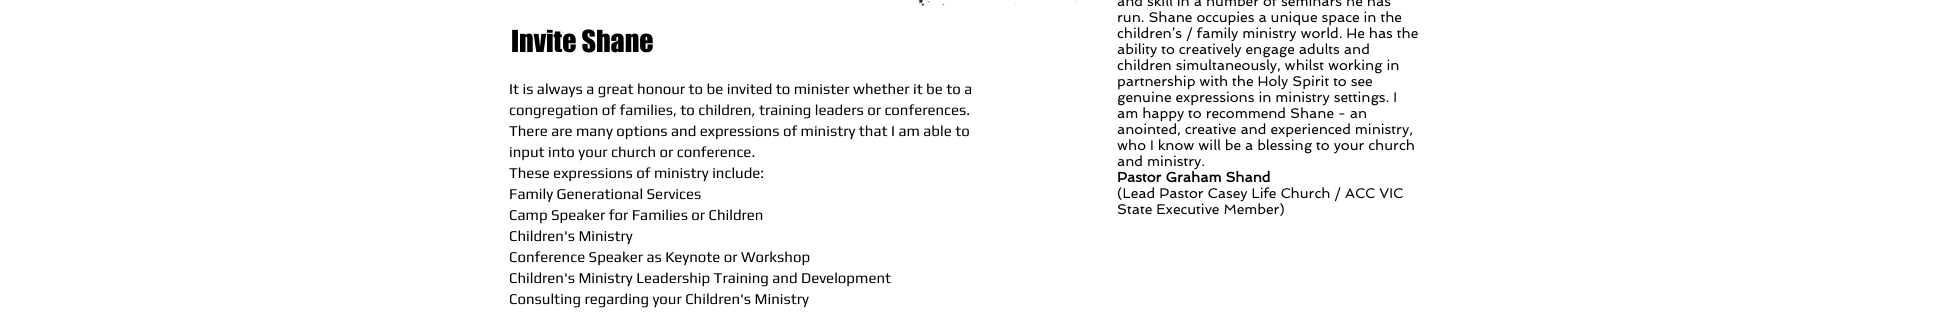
#include <cairo/cairo.h>
#include <math.h>
#include <stddef.h>

static cairo_t *cr;

static void use_color(int r, int g, int b) {
  cairo_set_source_rgb(cr, r / 255.0, g / 255.0, b / 255.0);
}

static void text(double x, double y, const char *s, const char *family, double size, int italic, int bold, int r, int g, int b) {
  cairo_select_font_face(cr, family, italic ? CAIRO_FONT_SLANT_ITALIC : CAIRO_FONT_SLANT_NORMAL,
    bold ? CAIRO_FONT_WEIGHT_BOLD : CAIRO_FONT_WEIGHT_NORMAL);
  cairo_set_font_size(cr, size);
  use_color(r, g, b);
  cairo_move_to(cr, x, y);
  cairo_show_text(cr, s);
}

static void picture(const char *path, double x, double y, double w, double h) {
  cairo_surface_t *image = cairo_image_surface_create_from_png(path);
  cairo_save(cr);
  cairo_set_source_surface(cr, image, x, y);
  cairo_rectangle(cr, x, y, w, h);
  cairo_fill(cr);
  cairo_restore(cr);
  cairo_surface_destroy(image);
}

static void draw(void) {
  use_color(255, 255, 255);
  cairo_paint(cr);
  picture("img_01.png", 918, 0, 158, 6);
  text(511, 52, "Invite Shane", "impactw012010", 28, 0, 0, 0, 0, 0);
  text(1117, 6, "and skill in a number of seminars he has", "Spinnaker", 14, 0, 0, 0, 0, 0);
  text(1117, 22, "run. Shane occupies a unique space in the", "Spinnaker", 14, 0, 0, 0, 0, 0);
  text(1117, 38, "children’s / family ministry world. He has the", "Spinnaker", 14, 0, 0, 0, 0, 0);
  text(1117, 54, "ability to creatively engage adults and", "Spinnaker", 14, 0, 0, 0, 0, 0);
  text(1117, 70, "children simultaneously, whilst working in", "Spinnaker", 14, 0, 0, 0, 0, 0);
  text(1117, 86, "partnership with the Holy Spirit to see", "Spinnaker", 14, 0, 0, 0, 0, 0);
  text(1117, 102, "genuine expressions in ministry settings. I", "Spinnaker", 14, 0, 0, 0, 0, 0);
  text(1117, 118, "am happy to recommend Shane - an", "Spinnaker", 14, 0, 0, 0, 0, 0);
  text(1117, 134, "anointed, creative and experienced ministry,", "Spinnaker", 14, 0, 0, 0, 0, 0);
  text(1117, 150, "who I know will be a blessing to your church", "Spinnaker", 14, 0, 0, 0, 0, 0);
  text(1117, 166, "and ministry.", "Spinnaker", 14, 0, 0, 0, 0, 0);
  text(1117, 182, "Pastor Graham Shand", "Spinnaker", 14, 0, 1, 0, 0, 0);
  text(1117, 198, "(Lead Pastor Casey Life Church / ACC VIC", "Spinnaker", 14, 0, 0, 0, 0, 0);
  text(1117, 214, "State Executive Member)", "Spinnaker", 14, 0, 0, 0, 0, 0);
  text(509, 94, "It is always a great honour to be invited to minister whether it be to a", "Play", 15, 0, 0, 0, 0, 0);
  text(509, 115, "congregation of families, to children, training leaders or conferences.", "Play", 15, 0, 0, 0, 0, 0);
  text(509, 136, "There are many options and expressions of ministry that I am able to", "Play", 15, 0, 0, 0, 0, 0);
  text(509, 157, "input into your church or conference.", "Play", 15, 0, 0, 0, 0, 0);
  text(509, 178, "These expressions of ministry include:", "Play", 15, 0, 0, 0, 0, 0);
  text(509, 199, "Family Generational Services", "Play", 15, 0, 0, 0, 0, 0);
  text(509, 220, "Camp Speaker for Families or Children", "Play", 15, 0, 0, 0, 0, 0);
  text(509, 241, "Children's Ministry", "Play", 15, 0, 0, 0, 0, 0);
  text(509, 262, "Conference Speaker as Keynote or Workshop", "Play", 15, 0, 0, 0, 0, 0);
  text(509, 283, "Children's Ministry Leadership Training and Development", "Play", 15, 0, 0, 0, 0, 0);
  text(509, 304, "Consulting regarding your Children's Ministry", "Play", 15, 0, 0, 0, 0, 0);
}

int main(void) {
  cairo_surface_t *surface = cairo_image_surface_create(CAIRO_FORMAT_RGB24, 1950, 313);
  cr = cairo_create(surface);
  cairo_font_options_t *options = cairo_font_options_create();
  cairo_font_options_set_hint_metrics(options, CAIRO_HINT_METRICS_OFF);
  cairo_font_options_set_hint_style(options, CAIRO_HINT_STYLE_NONE);
  cairo_set_font_options(cr, options);
  cairo_set_miter_limit(cr, 4);
  draw();
  cairo_surface_write_to_png(surface, "out.png");
  cairo_font_options_destroy(options);
  cairo_destroy(cr);
  cairo_surface_destroy(surface);
  return 0;
}
